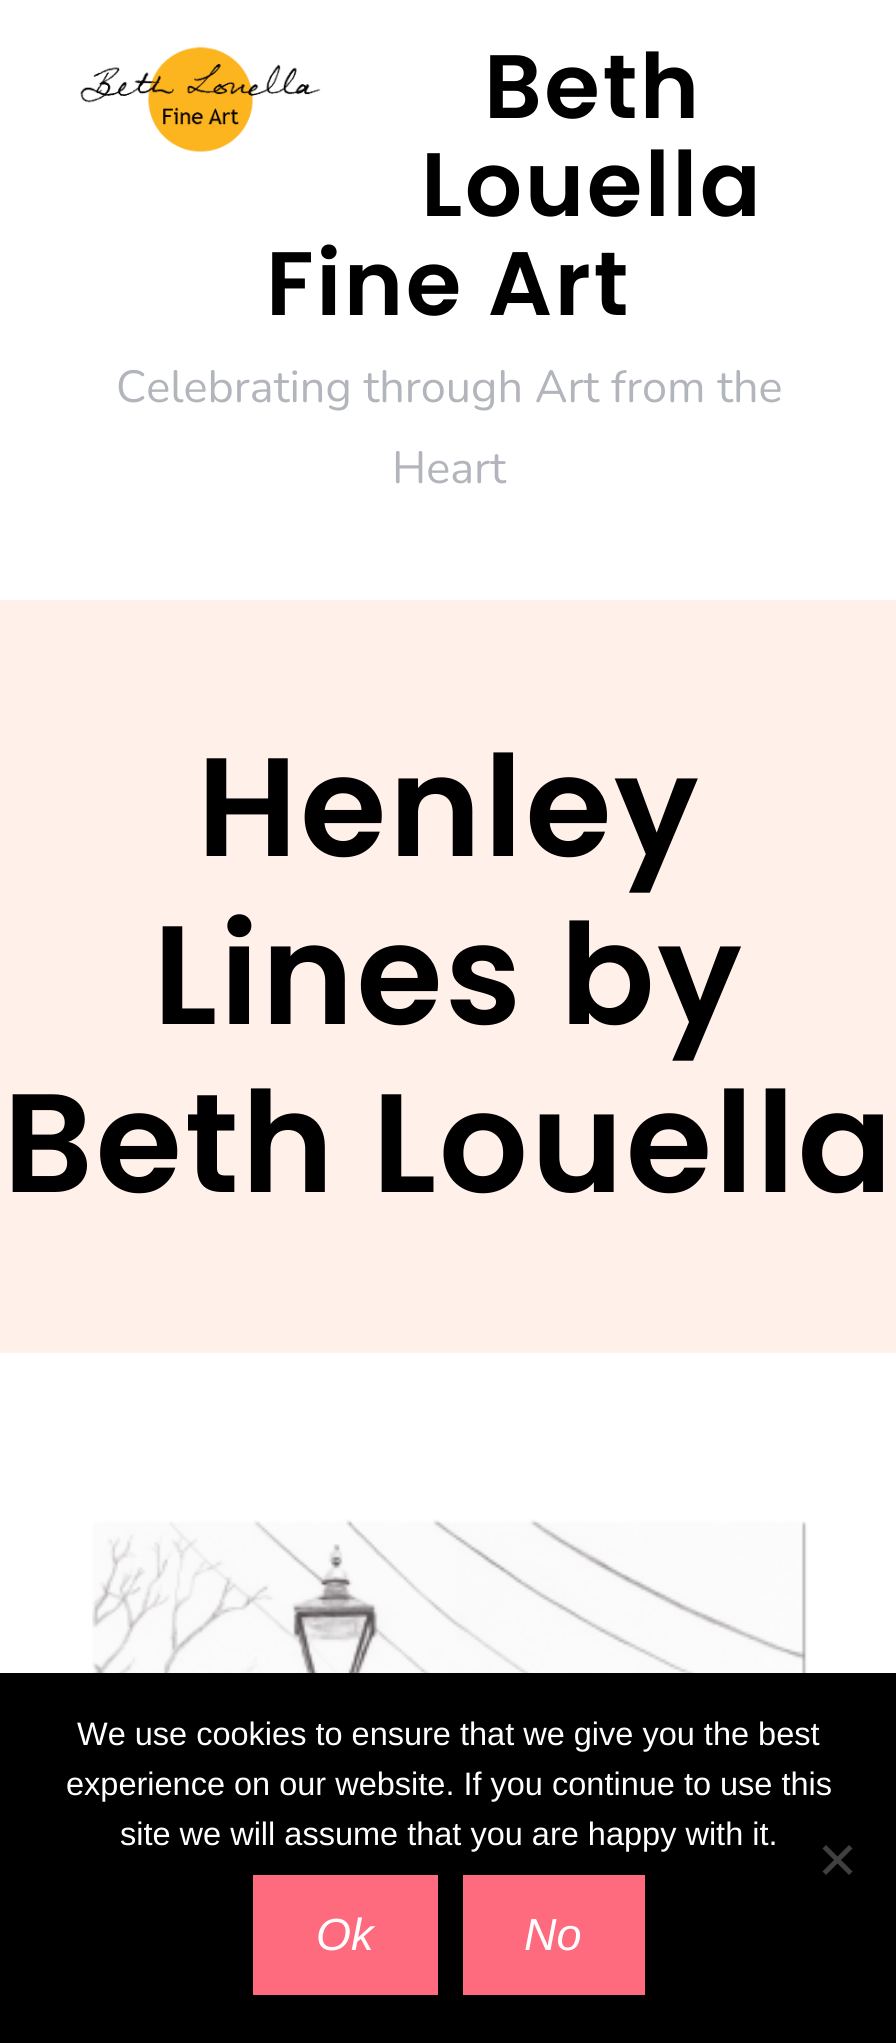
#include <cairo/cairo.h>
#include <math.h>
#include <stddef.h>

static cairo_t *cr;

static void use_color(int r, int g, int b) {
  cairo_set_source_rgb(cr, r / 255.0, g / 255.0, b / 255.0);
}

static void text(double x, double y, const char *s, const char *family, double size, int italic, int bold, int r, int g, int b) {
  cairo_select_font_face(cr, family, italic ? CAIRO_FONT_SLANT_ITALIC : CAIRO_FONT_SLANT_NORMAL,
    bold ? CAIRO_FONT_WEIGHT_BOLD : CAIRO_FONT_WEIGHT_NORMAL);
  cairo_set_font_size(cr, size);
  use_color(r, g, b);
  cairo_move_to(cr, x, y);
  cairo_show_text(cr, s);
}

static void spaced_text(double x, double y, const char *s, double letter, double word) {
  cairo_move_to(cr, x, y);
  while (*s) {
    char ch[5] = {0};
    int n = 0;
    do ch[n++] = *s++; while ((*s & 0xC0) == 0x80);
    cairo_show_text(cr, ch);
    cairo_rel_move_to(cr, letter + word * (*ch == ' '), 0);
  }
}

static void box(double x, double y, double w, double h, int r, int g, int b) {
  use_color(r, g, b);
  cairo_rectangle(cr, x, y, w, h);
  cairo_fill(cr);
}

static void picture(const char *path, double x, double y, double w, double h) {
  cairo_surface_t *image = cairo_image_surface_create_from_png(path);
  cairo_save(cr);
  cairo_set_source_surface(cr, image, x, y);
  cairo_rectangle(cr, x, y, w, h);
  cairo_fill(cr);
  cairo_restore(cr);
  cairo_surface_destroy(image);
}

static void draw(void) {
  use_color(255, 255, 255);
  cairo_paint(cr);
  picture("img_01.png", 80, 46, 241, 106);
  box(0, 600, 896, 753, 255, 240, 234);
  picture("img_02.png", 92, 1519, 716, 154);
  box(0, 1673, 896, 370, 0, 0, 0);
  use_color(64, 64, 64);
  cairo_new_path(cr);
  cairo_move_to(cr, 849, 1845);
  cairo_line_to(cr, 852.5, 1848.5);
  cairo_line_to(cr, 826, 1875);
  cairo_line_to(cr, 822.5, 1871.5);
  cairo_close_path(cr);
  cairo_fill(cr);
  cairo_new_path(cr);
  cairo_move_to(cr, 822.5, 1848.5);
  cairo_line_to(cr, 826, 1845);
  cairo_line_to(cr, 852.5, 1871.5);
  cairo_line_to(cr, 849, 1875);
  cairo_close_path(cr);
  cairo_fill(cr);
  box(253, 1875, 185, 120, 255, 107, 126);
  box(463, 1875, 182, 120, 255, 107, 126);
  cairo_select_font_face(cr, "Poppins SemiBold", CAIRO_FONT_SLANT_NORMAL, CAIRO_FONT_WEIGHT_NORMAL);
  cairo_set_font_size(cr, 90);
  use_color(0, 0, 0);
  spaced_text(484, 118, "Beth", 2.5, 0);
  spaced_text(421, 216, "Louella", 2.5, 0);
  spaced_text(266, 315, "Fine Art", 2.5, 0);
  text(116, 402, "Celebrating through Art from the", "Nunito", 45, 0, 0, 178, 181, 187);
  text(392, 483, "Heart", "Nunito", 45, 0, 0, 178, 181, 187);
  cairo_select_font_face(cr, "Poppins SemiBold", CAIRO_FONT_SLANT_NORMAL, CAIRO_FONT_WEIGHT_NORMAL);
  cairo_set_font_size(cr, 140);
  use_color(0, 0, 0);
  spaced_text(197, 856, "Henley", 2.5, 0);
  spaced_text(153, 1024, "Lines by", 2.5, 0);
  spaced_text(3, 1192, "Beth Louella", 2.5, 0);
  text(77, 1745, "We use cookies to ensure that we give you the best", "Liberation Sans", 32.5, 0, 0, 255, 255, 255);
  text(66, 1795, "experience on our website. If you continue to use this", "Liberation Sans", 32.5, 0, 0, 255, 255, 255);
  text(120, 1845, "site we will assume that you are happy with it.", "Liberation Sans", 32.5, 0, 0, 255, 255, 255);
  text(316, 1950, "Ok", "Liberation Sans", 45, 1, 0, 255, 255, 255);
  text(524, 1950, "No", "Liberation Sans", 45, 1, 0, 255, 255, 255);
}

int main(void) {
  cairo_surface_t *surface = cairo_image_surface_create(CAIRO_FORMAT_RGB24, 896, 2043);
  cr = cairo_create(surface);
  cairo_font_options_t *options = cairo_font_options_create();
  cairo_font_options_set_hint_metrics(options, CAIRO_HINT_METRICS_OFF);
  cairo_font_options_set_hint_style(options, CAIRO_HINT_STYLE_NONE);
  cairo_set_font_options(cr, options);
  cairo_set_miter_limit(cr, 4);
  draw();
  cairo_surface_write_to_png(surface, "out.png");
  cairo_font_options_destroy(options);
  cairo_destroy(cr);
  cairo_surface_destroy(surface);
  return 0;
}
